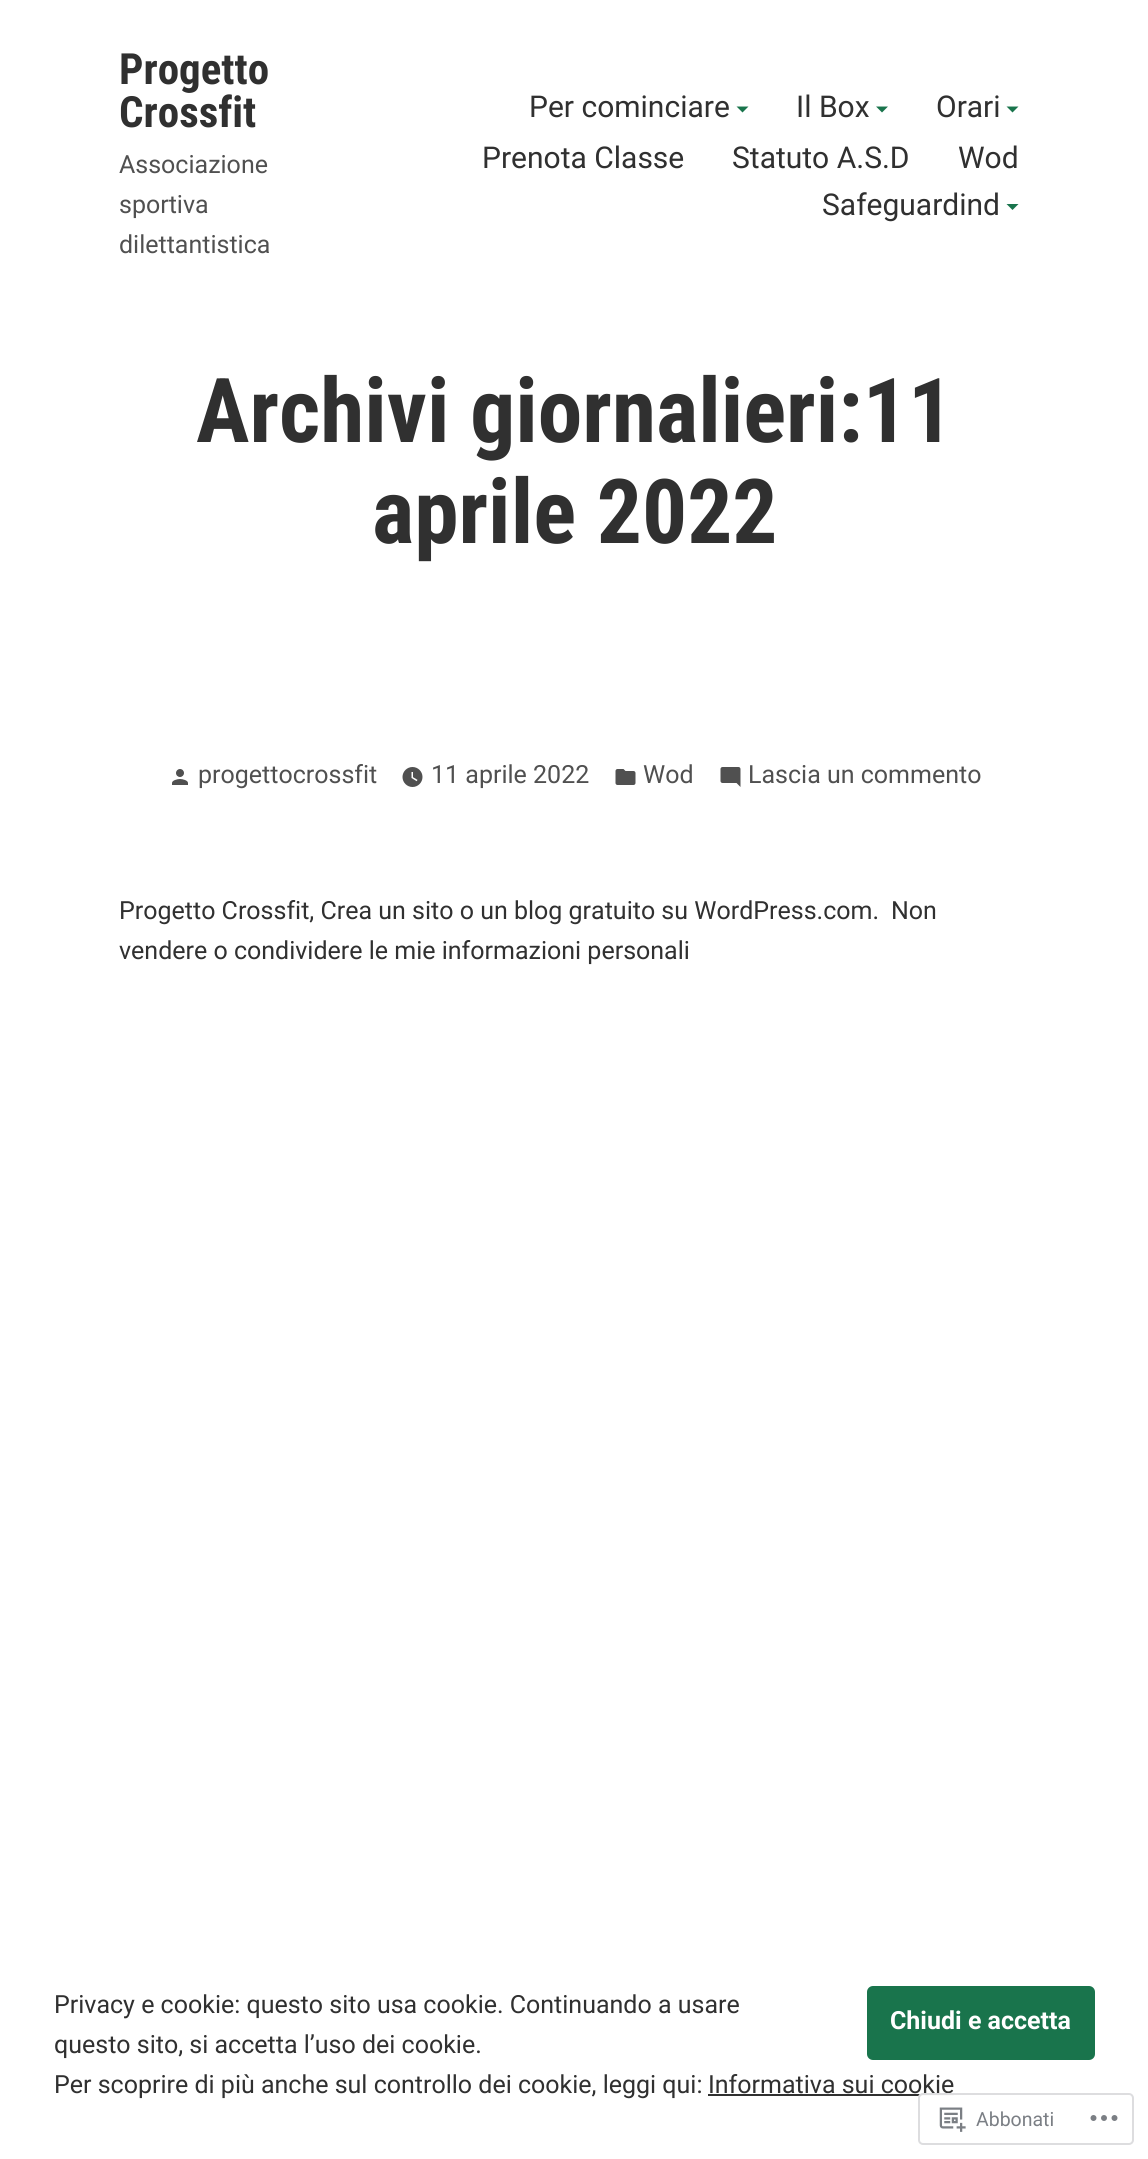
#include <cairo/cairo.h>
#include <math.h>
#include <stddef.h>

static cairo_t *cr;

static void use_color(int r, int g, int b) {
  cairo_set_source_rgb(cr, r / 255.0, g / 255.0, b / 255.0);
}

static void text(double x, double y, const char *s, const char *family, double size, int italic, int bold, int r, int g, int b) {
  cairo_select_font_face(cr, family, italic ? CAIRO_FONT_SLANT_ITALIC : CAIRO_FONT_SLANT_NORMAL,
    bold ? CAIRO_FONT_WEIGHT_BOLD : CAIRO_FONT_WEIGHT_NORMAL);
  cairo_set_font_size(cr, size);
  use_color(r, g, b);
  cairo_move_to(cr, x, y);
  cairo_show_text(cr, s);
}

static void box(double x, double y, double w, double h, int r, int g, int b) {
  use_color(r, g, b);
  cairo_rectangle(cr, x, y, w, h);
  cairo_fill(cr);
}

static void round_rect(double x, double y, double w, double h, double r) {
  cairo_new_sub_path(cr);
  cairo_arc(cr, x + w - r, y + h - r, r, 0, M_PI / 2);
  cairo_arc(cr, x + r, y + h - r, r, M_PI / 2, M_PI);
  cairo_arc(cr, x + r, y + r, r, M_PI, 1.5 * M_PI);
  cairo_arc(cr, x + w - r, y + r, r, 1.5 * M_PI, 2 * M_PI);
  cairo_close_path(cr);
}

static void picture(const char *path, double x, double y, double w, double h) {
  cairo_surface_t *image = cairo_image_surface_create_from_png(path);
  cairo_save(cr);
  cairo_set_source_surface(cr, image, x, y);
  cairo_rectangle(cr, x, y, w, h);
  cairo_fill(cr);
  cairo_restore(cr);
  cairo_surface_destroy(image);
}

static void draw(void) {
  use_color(255, 255, 255);
  cairo_paint(cr);
  use_color(25, 116, 76);
  cairo_new_path(cr);
  cairo_move_to(cr, 736.5, 106.5);
  cairo_line_to(cr, 748.5, 106.5);
  cairo_line_to(cr, 742.5, 112.5);
  cairo_close_path(cr);
  cairo_fill(cr);
  cairo_new_path(cr);
  cairo_move_to(cr, 876, 106.5);
  cairo_line_to(cr, 888, 106.5);
  cairo_line_to(cr, 882, 112.5);
  cairo_close_path(cr);
  cairo_fill(cr);
  cairo_new_path(cr);
  cairo_move_to(cr, 1006.5, 106.5);
  cairo_line_to(cr, 1018.5, 106.5);
  cairo_line_to(cr, 1012.5, 112.5);
  cairo_close_path(cr);
  cairo_fill(cr);
  cairo_new_path(cr);
  cairo_move_to(cr, 1006.5, 204);
  cairo_line_to(cr, 1018.5, 204);
  cairo_line_to(cr, 1012.5, 210);
  cairo_close_path(cr);
  cairo_fill(cr);
  picture("img_01.png", 172, 769, 16, 16);
  picture("img_02.png", 402, 767, 21, 20);
  picture("img_03.png", 615, 769, 21, 16);
  picture("img_04.png", 720, 767, 21, 20);
  round_rect(867, 1986, 228, 74, 6);
  cairo_fill(cr);
  box(708, 2094, 246, 2, 48, 48, 48);
  text(119, 84, "Progetto", "Roboto Condensed", 43, 0, 1, 48, 48, 48);
  text(119, 127, "Crossfit", "Roboto Condensed", 43, 0, 1, 48, 48, 48);
  text(119, 173, "Associazione", "Roboto", 25, 0, 0, 80, 80, 80);
  text(119, 213, "sportiva", "Roboto", 25, 0, 0, 80, 80, 80);
  text(119, 253, "dilettantistica", "Roboto", 25, 0, 0, 80, 80, 80);
  text(529, 117, "Per cominciare", "Roboto", 30, 0, 0, 48, 48, 48);
  text(796, 117, "Il Box", "Roboto", 30, 0, 0, 48, 48, 48);
  text(936, 117, "Orari", "Roboto", 30, 0, 0, 48, 48, 48);
  text(482, 168, "Prenota Classe", "Roboto", 30, 0, 0, 48, 48, 48);
  text(732, 168, "Statuto A.S.D", "Roboto", 30, 0, 0, 48, 48, 48);
  text(958, 168, "Wod", "Roboto", 30, 0, 0, 48, 48, 48);
  text(822, 215, "Safeguardind", "Roboto", 30, 0, 0, 48, 48, 48);
  text(196, 442, "Archivi giornalieri:11", "Roboto Condensed", 89.5, 0, 1, 48, 48, 48);
  text(372, 543, "aprile 2022", "Roboto Condensed", 89.5, 0, 1, 48, 48, 48);
  text(198, 783, "progettocrossfit", "Roboto", 25, 0, 0, 80, 80, 80);
  text(431, 783, "11 aprile 2022", "Roboto", 25, 0, 0, 80, 80, 80);
  text(643, 783, "Wod", "Roboto", 25, 0, 0, 80, 80, 80);
  text(748, 783, "Lascia un commento", "Roboto", 25, 0, 0, 80, 80, 80);
  text(119, 919, "Progetto Crossfit, Crea un sito o un blog gratuito su WordPress.com.", "Roboto", 25, 0, 0, 48, 48, 48);
  text(891, 919, "Non", "Roboto", 25, 0, 0, 48, 48, 48);
  text(119, 959, "vendere o condividere le mie informazioni personali", "Roboto", 25, 0, 0, 48, 48, 48);
  text(54, 2013, "Privacy e cookie: questo sito usa cookie. Continuando a usare", "Roboto", 25, 0, 0, 48, 48, 48);
  text(890, 2029, "Chiudi e accetta", "Roboto", 25, 0, 1, 255, 255, 255);
  text(54, 2053, "questo sito, si accetta l’uso dei cookie.", "Roboto", 25, 0, 0, 48, 48, 48);
  text(54, 2093, "Per scoprire di più anche sul controllo dei cookie, leggi qui:", "Roboto", 25, 0, 0, 48, 48, 48);
  text(708, 2093, "Informativa sui cookie", "Roboto", 25, 0, 0, 48, 48, 48);
  cairo_set_source_rgba(cr, 1, 1, 1, 0.98);
  round_rect(918, 2093, 216, 52, 5);
  cairo_fill(cr);
  round_rect(919, 2094, 214, 50, 4);
  cairo_set_source_rgba(cr, 0.863, 0.863, 0.871, 0.98);
  cairo_stroke(cr);
  picture("img_05.png", 939, 2107, 27, 25);
  text(976, 2126, "Abbonati", "Roboto", 19.5, 0, 0, 123, 127, 133);
  picture("img_06.png", 1090, 2115, 28, 6);
}

int main(void) {
  cairo_surface_t *surface = cairo_image_surface_create(CAIRO_FORMAT_RGB24, 1148, 2159);
  cr = cairo_create(surface);
  cairo_font_options_t *options = cairo_font_options_create();
  cairo_font_options_set_hint_metrics(options, CAIRO_HINT_METRICS_OFF);
  cairo_font_options_set_hint_style(options, CAIRO_HINT_STYLE_NONE);
  cairo_set_font_options(cr, options);
  cairo_set_miter_limit(cr, 4);
  draw();
  cairo_surface_write_to_png(surface, "out.png");
  cairo_font_options_destroy(options);
  cairo_destroy(cr);
  cairo_surface_destroy(surface);
  return 0;
}
